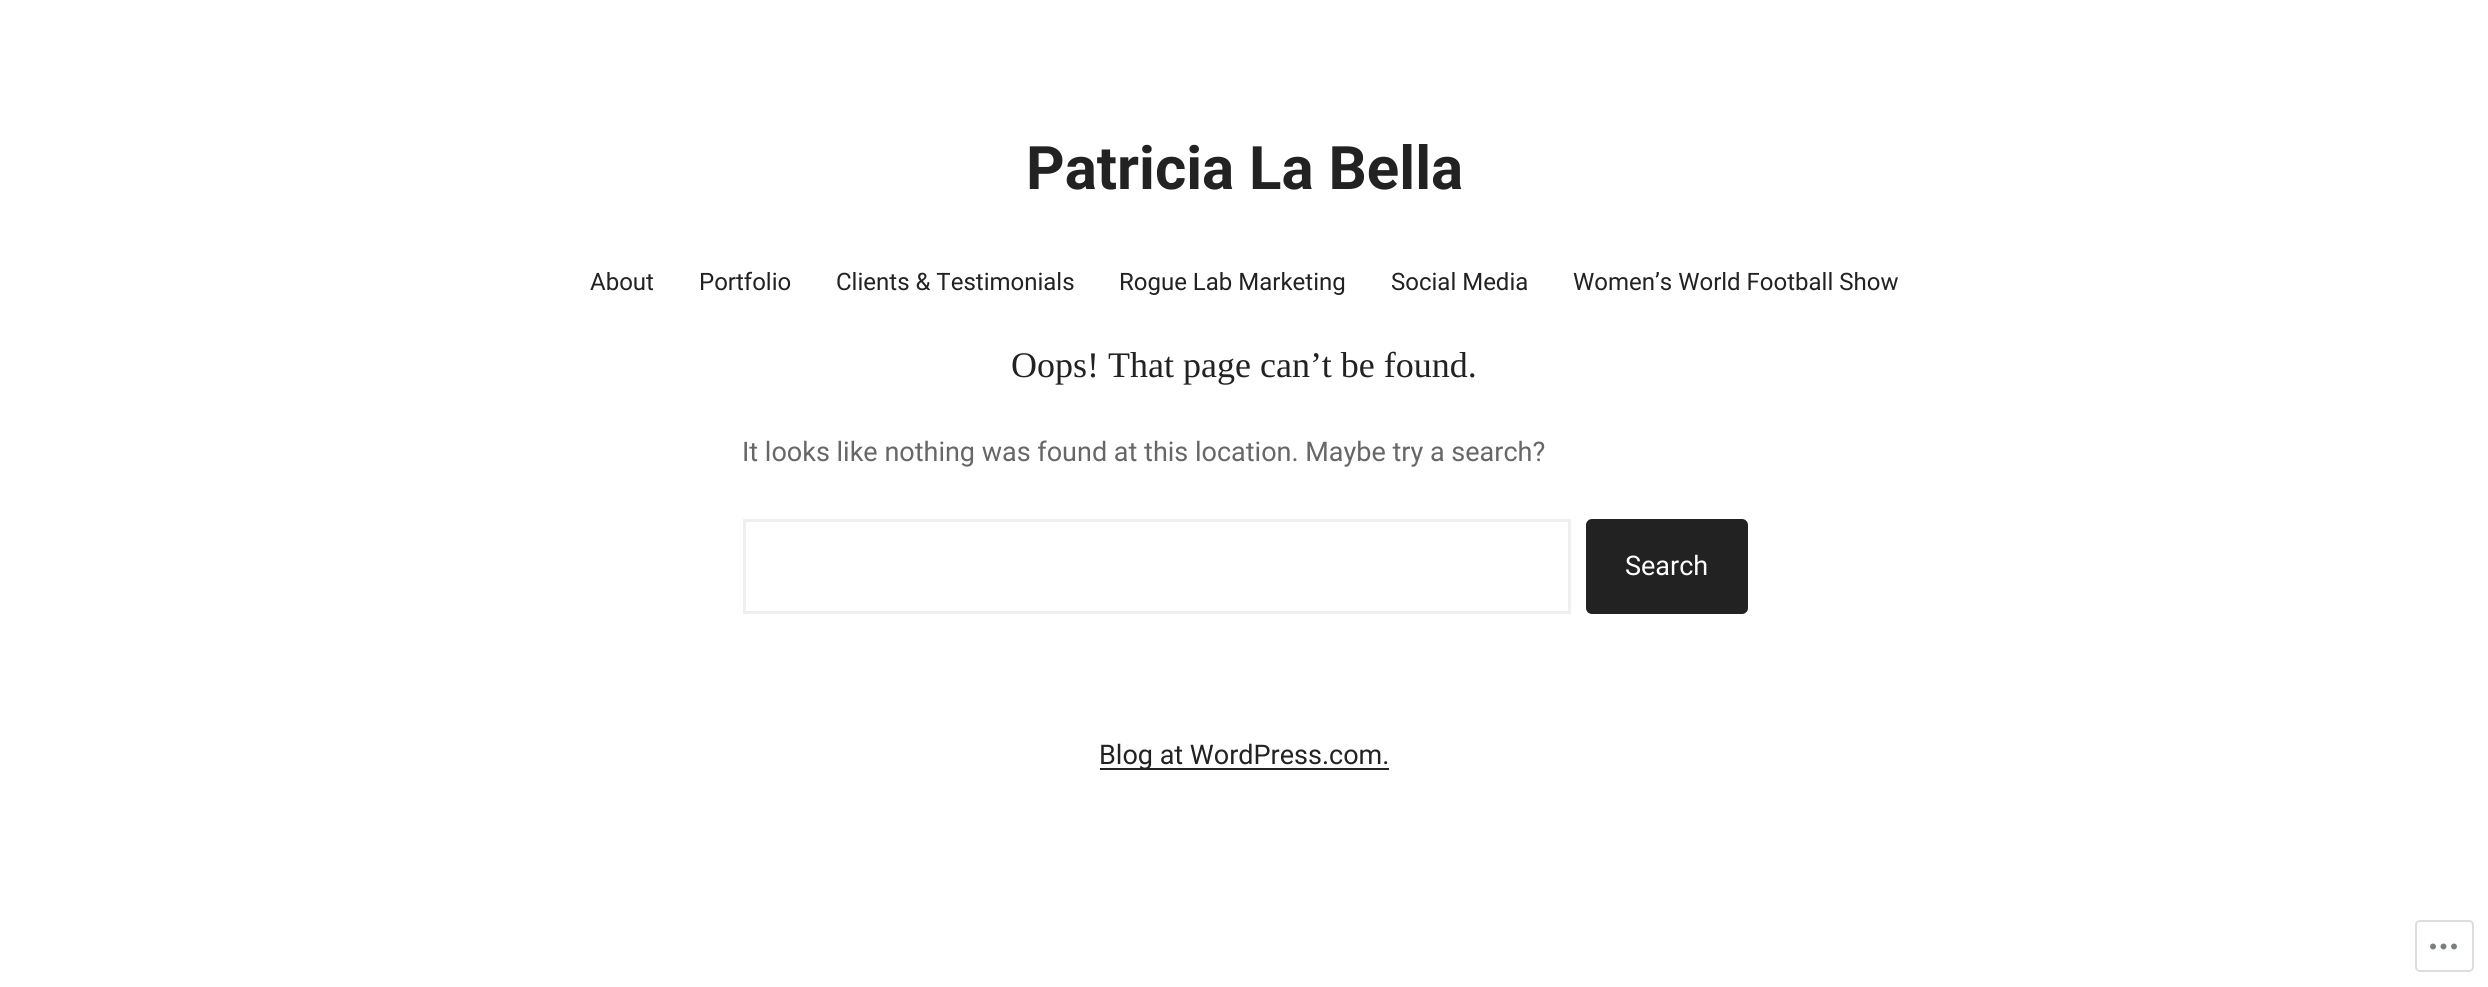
#include <cairo/cairo.h>
#include <math.h>
#include <stddef.h>

static cairo_t *cr;

static void use_color(int r, int g, int b) {
  cairo_set_source_rgb(cr, r / 255.0, g / 255.0, b / 255.0);
}

static void text(double x, double y, const char *s, const char *family, double size, int italic, int bold, int r, int g, int b) {
  cairo_select_font_face(cr, family, italic ? CAIRO_FONT_SLANT_ITALIC : CAIRO_FONT_SLANT_NORMAL,
    bold ? CAIRO_FONT_WEIGHT_BOLD : CAIRO_FONT_WEIGHT_NORMAL);
  cairo_set_font_size(cr, size);
  use_color(r, g, b);
  cairo_move_to(cr, x, y);
  cairo_show_text(cr, s);
}

static void box(double x, double y, double w, double h, int r, int g, int b) {
  use_color(r, g, b);
  cairo_rectangle(cr, x, y, w, h);
  cairo_fill(cr);
}

static void round_rect(double x, double y, double w, double h, double r) {
  cairo_new_sub_path(cr);
  cairo_arc(cr, x + w - r, y + h - r, r, 0, M_PI / 2);
  cairo_arc(cr, x + r, y + h - r, r, M_PI / 2, M_PI);
  cairo_arc(cr, x + r, y + r, r, M_PI, 1.5 * M_PI);
  cairo_arc(cr, x + w - r, y + r, r, 1.5 * M_PI, 2 * M_PI);
  cairo_close_path(cr);
}

static void picture(const char *path, double x, double y, double w, double h) {
  cairo_surface_t *image = cairo_image_surface_create_from_png(path);
  cairo_save(cr);
  cairo_set_source_surface(cr, image, x, y);
  cairo_rectangle(cr, x, y, w, h);
  cairo_fill(cr);
  cairo_restore(cr);
  cairo_surface_destroy(image);
}

static void draw(void) {
  use_color(255, 255, 255);
  cairo_paint(cr);
  cairo_rectangle(cr, 744.5, 520.5, 825, 92);
  use_color(239, 239, 239);
  cairo_set_line_width(cr, 3);
  cairo_stroke(cr);
  use_color(34, 34, 34);
  round_rect(1586, 519, 162, 95, 6);
  cairo_fill(cr);
  box(1100, 768, 289, 2, 34, 34, 34);
  round_rect(2416, 921, 57, 50, 4);
  use_color(221, 221, 223);
  cairo_set_line_width(cr, 2);
  cairo_stroke(cr);
  picture("img_01.png", 2430, 943, 27, 7);
  text(1026, 189, "Patricia La Bella", "Roboto", 60, 0, 1, 34, 34, 34);
  text(590, 290, "About", "Roboto", 24, 0, 0, 34, 34, 34);
  text(699, 290, "Portfolio", "Roboto", 24, 0, 0, 34, 34, 34);
  text(836, 290, "Clients & Testimonials", "Roboto", 24, 0, 0, 34, 34, 34);
  text(1119, 290, "Rogue Lab Marketing", "Roboto", 24, 0, 0, 34, 34, 34);
  text(1391, 290, "Social Media", "Roboto", 24, 0, 0, 34, 34, 34);
  text(1573, 290, "Women’s World Football Show", "Roboto", 24, 0, 0, 34, 34, 34);
  text(1011, 377, "Oops! That page can’t be found.", "Liberation Serif", 36, 0, 0, 34, 34, 34);
  text(742, 461, "It looks like nothing was found at this location. Maybe try a search?", "Roboto", 27, 0, 0, 103, 103, 103);
  text(1625, 575, "Search", "Roboto", 27, 0, 0, 255, 255, 255);
  text(1099, 764, "Blog at WordPress.com.", "Roboto", 27, 0, 0, 34, 34, 34);
}

int main(void) {
  cairo_surface_t *surface = cairo_image_surface_create(CAIRO_FORMAT_RGB24, 2488, 987);
  cr = cairo_create(surface);
  cairo_font_options_t *options = cairo_font_options_create();
  cairo_font_options_set_hint_metrics(options, CAIRO_HINT_METRICS_OFF);
  cairo_font_options_set_hint_style(options, CAIRO_HINT_STYLE_NONE);
  cairo_set_font_options(cr, options);
  cairo_set_miter_limit(cr, 4);
  draw();
  cairo_surface_write_to_png(surface, "out.png");
  cairo_font_options_destroy(options);
  cairo_destroy(cr);
  cairo_surface_destroy(surface);
  return 0;
}
